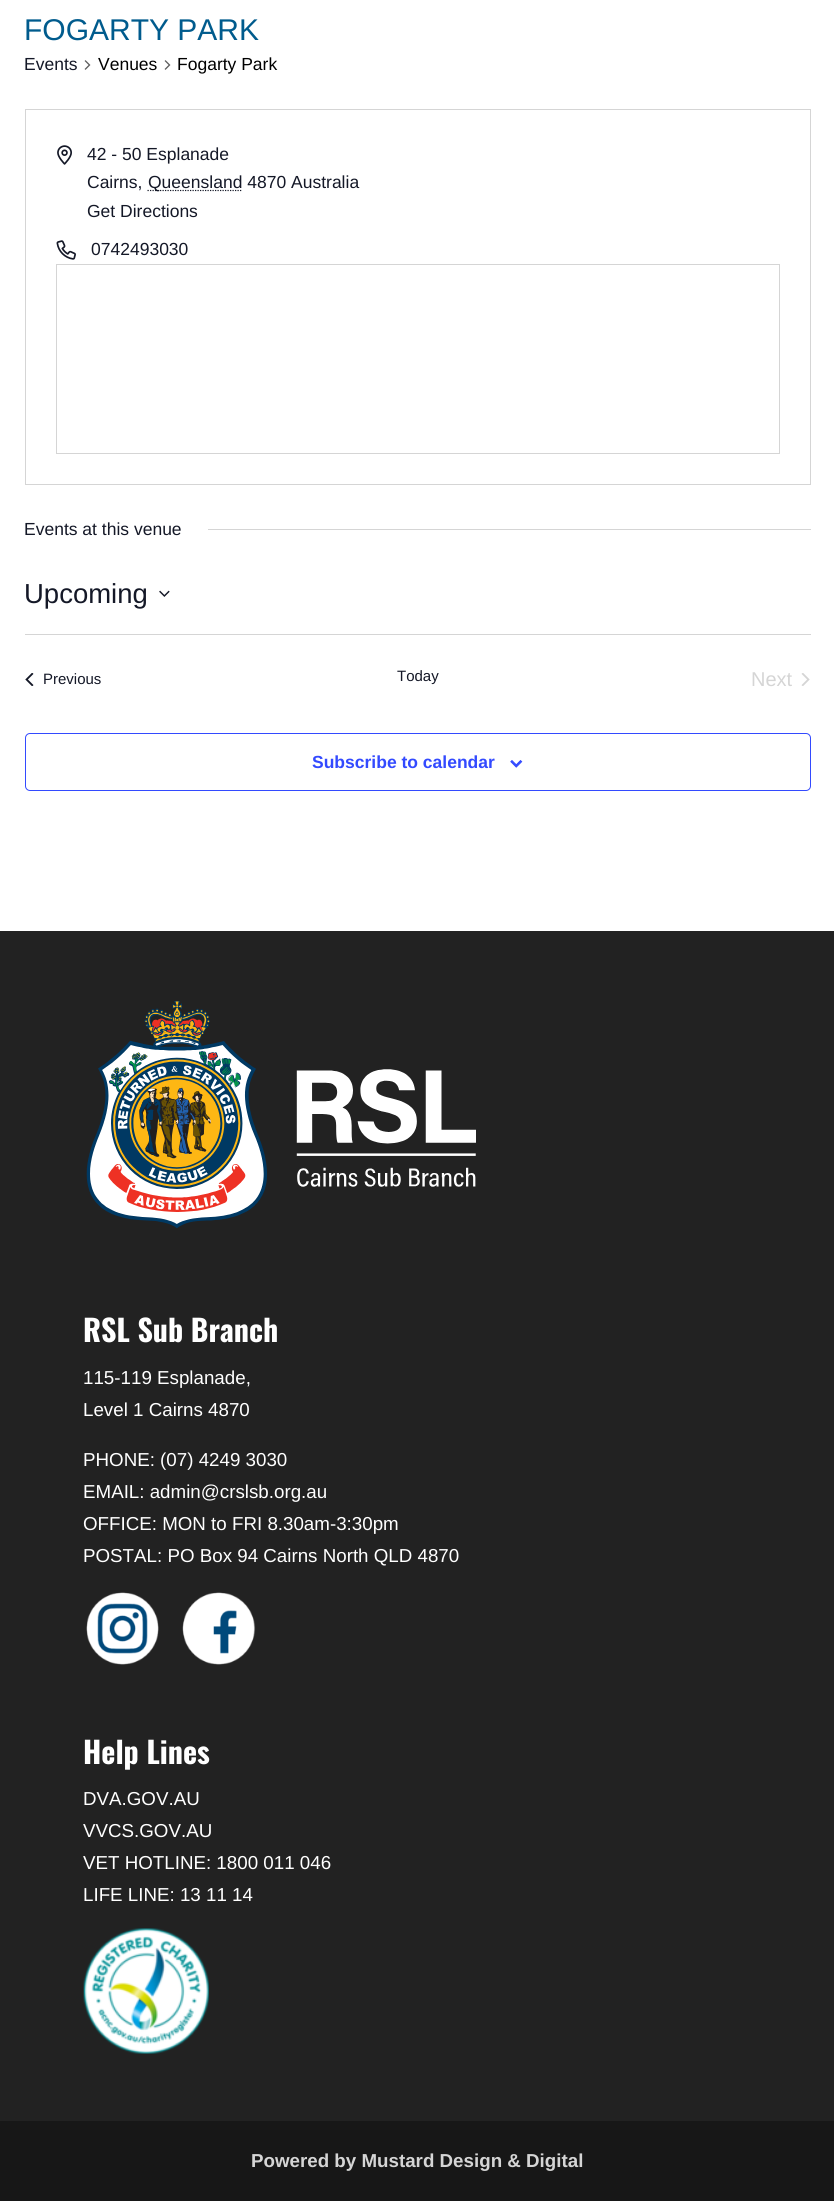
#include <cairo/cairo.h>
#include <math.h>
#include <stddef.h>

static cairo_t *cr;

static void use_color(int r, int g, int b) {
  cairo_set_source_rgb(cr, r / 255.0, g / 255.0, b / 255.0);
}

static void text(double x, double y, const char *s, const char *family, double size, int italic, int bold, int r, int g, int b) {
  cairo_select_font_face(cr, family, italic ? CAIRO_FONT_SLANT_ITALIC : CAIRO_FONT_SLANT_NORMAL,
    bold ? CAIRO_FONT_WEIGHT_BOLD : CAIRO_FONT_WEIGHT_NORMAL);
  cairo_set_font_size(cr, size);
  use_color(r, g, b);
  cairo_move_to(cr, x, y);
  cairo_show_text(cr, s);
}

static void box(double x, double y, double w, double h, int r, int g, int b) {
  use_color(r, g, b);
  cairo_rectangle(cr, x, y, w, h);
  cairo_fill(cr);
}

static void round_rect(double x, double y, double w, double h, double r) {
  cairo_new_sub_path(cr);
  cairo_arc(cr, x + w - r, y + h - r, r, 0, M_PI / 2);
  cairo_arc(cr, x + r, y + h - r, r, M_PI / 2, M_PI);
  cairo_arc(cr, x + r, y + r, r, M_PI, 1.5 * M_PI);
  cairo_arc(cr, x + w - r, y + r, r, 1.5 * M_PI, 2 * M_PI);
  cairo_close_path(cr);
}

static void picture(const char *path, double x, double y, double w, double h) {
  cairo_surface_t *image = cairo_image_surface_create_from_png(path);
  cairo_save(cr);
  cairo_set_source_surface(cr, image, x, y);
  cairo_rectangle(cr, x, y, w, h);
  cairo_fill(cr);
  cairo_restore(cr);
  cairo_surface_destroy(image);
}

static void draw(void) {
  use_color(255, 255, 255);
  cairo_paint(cr);
  picture("img_01.png", 84, 60, 7, 10);
  picture("img_01.png", 164, 60, 7, 10);
  cairo_rectangle(cr, 25.5, 109.5, 785, 375);
  use_color(213, 213, 213);
  cairo_set_line_width(cr, 1);
  cairo_stroke(cr);
  picture("img_02.png", 57, 145, 15, 20);
  cairo_new_path(cr);
  cairo_move_to(cr, 147.5, 190.5);
  cairo_line_to(cr, 242, 190.5);
  use_color(20, 24, 39);
  cairo_set_line_width(cr, 1.2);
  cairo_set_dash(cr, (double[]){1.25, 1.25}, 2, 0);
  cairo_stroke(cr);
  picture("img_03.png", 56, 240, 20, 20);
  cairo_rectangle(cr, 56.5, 264.5, 723, 189);
  use_color(213, 213, 213);
  cairo_set_line_width(cr, 1);
  cairo_set_dash(cr, NULL, 0, 0);
  cairo_stroke(cr);
  box(208, 529, 603, 1, 213, 213, 213);
  picture("img_04.png", 159, 590, 11, 7);
  box(25, 634, 786, 1, 213, 213, 213);
  picture("img_05.png", 25, 673, 9, 13);
  picture("img_06.png", 801, 673, 9, 13);
  round_rect(25.5, 733.5, 785, 57, 4.5);
  use_color(51, 74, 255);
  cairo_stroke(cr);
  picture("img_07.png", 510, 760, 13, 8);
  box(0, 931, 834, 1190, 34, 34, 34);
  picture("img_08.png", 86, 1001, 390, 228);
  picture("img_09.png", 86, 1592, 73, 73);
  picture("img_10.png", 182, 1592, 74, 73);
  picture("img_11.png", 83, 1928, 126, 126);
  box(0, 2121, 834, 80, 23, 23, 23);
  text(24, 40, "FOGARTY PARK", "Liberation Sans", 30, 0, 0, 0, 91, 141);
  text(24, 70, "Events", "Liberation Sans", 17.5, 0, 0, 20, 24, 39);
  text(98, 70, "Venues", "Liberation Sans", 17.5, 0, 0, 0, 0, 0);
  text(177, 70, "Fogarty Park", "Liberation Sans", 17.5, 0, 0, 0, 0, 0);
  text(87, 160, "42 - 50 Esplanade", "Liberation Sans", 17.5, 0, 0, 20, 24, 39);
  text(87, 188, "Cairns,", "Liberation Sans", 17.5, 0, 0, 20, 24, 39);
  text(148, 188, "Queensland 4870 Australia", "Liberation Sans", 17.5, 0, 0, 20, 24, 39);
  text(87, 217, "Get Directions", "Liberation Sans", 17.5, 0, 0, 20, 24, 39);
  text(91, 255, "0742493030", "Liberation Sans", 17.5, 0, 0, 20, 24, 39);
  text(24, 535, "Events at this venue", "Liberation Sans", 17.5, 0, 0, 20, 24, 39);
  text(24, 603, "Upcoming", "Liberation Sans", 27.5, 0, 0, 20, 24, 39);
  text(43, 684, "Previous", "Liberation Sans", 15, 0, 0, 20, 24, 39);
  text(397, 681, "Today", "Liberation Sans", 15, 0, 0, 20, 24, 39);
  text(751, 686, "Next", "Liberation Sans", 20, 0, 0, 213, 213, 213);
  text(312, 768, "Subscribe to calendar", "Liberation Sans", 17.5, 0, 1, 51, 74, 255);
  text(83, 1342, "RSL Sub Branch", "Oswald", 30, 0, 1, 255, 255, 255);
  text(83, 1384, "115-119 Esplanade,", "Liberation Sans", 18.75, 0, 0, 255, 255, 255);
  text(83, 1416, "Level 1 Cairns 4870", "Liberation Sans", 18.75, 0, 0, 255, 255, 255);
  text(83, 1466, "PHONE: (07) 4249 3030", "Liberation Sans", 18.75, 0, 0, 255, 255, 255);
  text(83, 1498, "EMAIL: admin@crslsb.org.au", "Liberation Sans", 18.75, 0, 0, 255, 255, 255);
  text(83, 1530, "OFFICE: MON to FRI 8.30am-3:30pm", "Liberation Sans", 18.75, 0, 0, 255, 255, 255);
  text(83, 1562, "POSTAL: PO Box 94 Cairns North QLD 4870", "Liberation Sans", 18.75, 0, 0, 255, 255, 255);
  text(83, 1764, "Help Lines", "Oswald", 30, 0, 1, 255, 255, 255);
  text(83, 1805, "DVA.GOV.AU", "Liberation Sans", 18.75, 0, 0, 255, 255, 255);
  text(83, 1837, "VVCS.GOV.AU", "Liberation Sans", 18.75, 0, 0, 255, 255, 255);
  text(83, 1869, "VET HOTLINE: 1800 011 046", "Liberation Sans", 18.75, 0, 0, 255, 255, 255);
  text(83, 1901, "LIFE LINE: 13 11 14", "Liberation Sans", 18.75, 0, 0, 255, 255, 255);
  text(251, 2167, "Powered by Mustard Design & Digital", "Liberation Sans", 18.75, 0, 1, 213, 213, 213);
}

int main(void) {
  cairo_surface_t *surface = cairo_image_surface_create(CAIRO_FORMAT_RGB24, 834, 2201);
  cr = cairo_create(surface);
  cairo_font_options_t *options = cairo_font_options_create();
  cairo_font_options_set_hint_metrics(options, CAIRO_HINT_METRICS_OFF);
  cairo_font_options_set_hint_style(options, CAIRO_HINT_STYLE_NONE);
  cairo_set_font_options(cr, options);
  cairo_set_miter_limit(cr, 4);
  draw();
  cairo_surface_write_to_png(surface, "out.png");
  cairo_font_options_destroy(options);
  cairo_destroy(cr);
  cairo_surface_destroy(surface);
  return 0;
}
